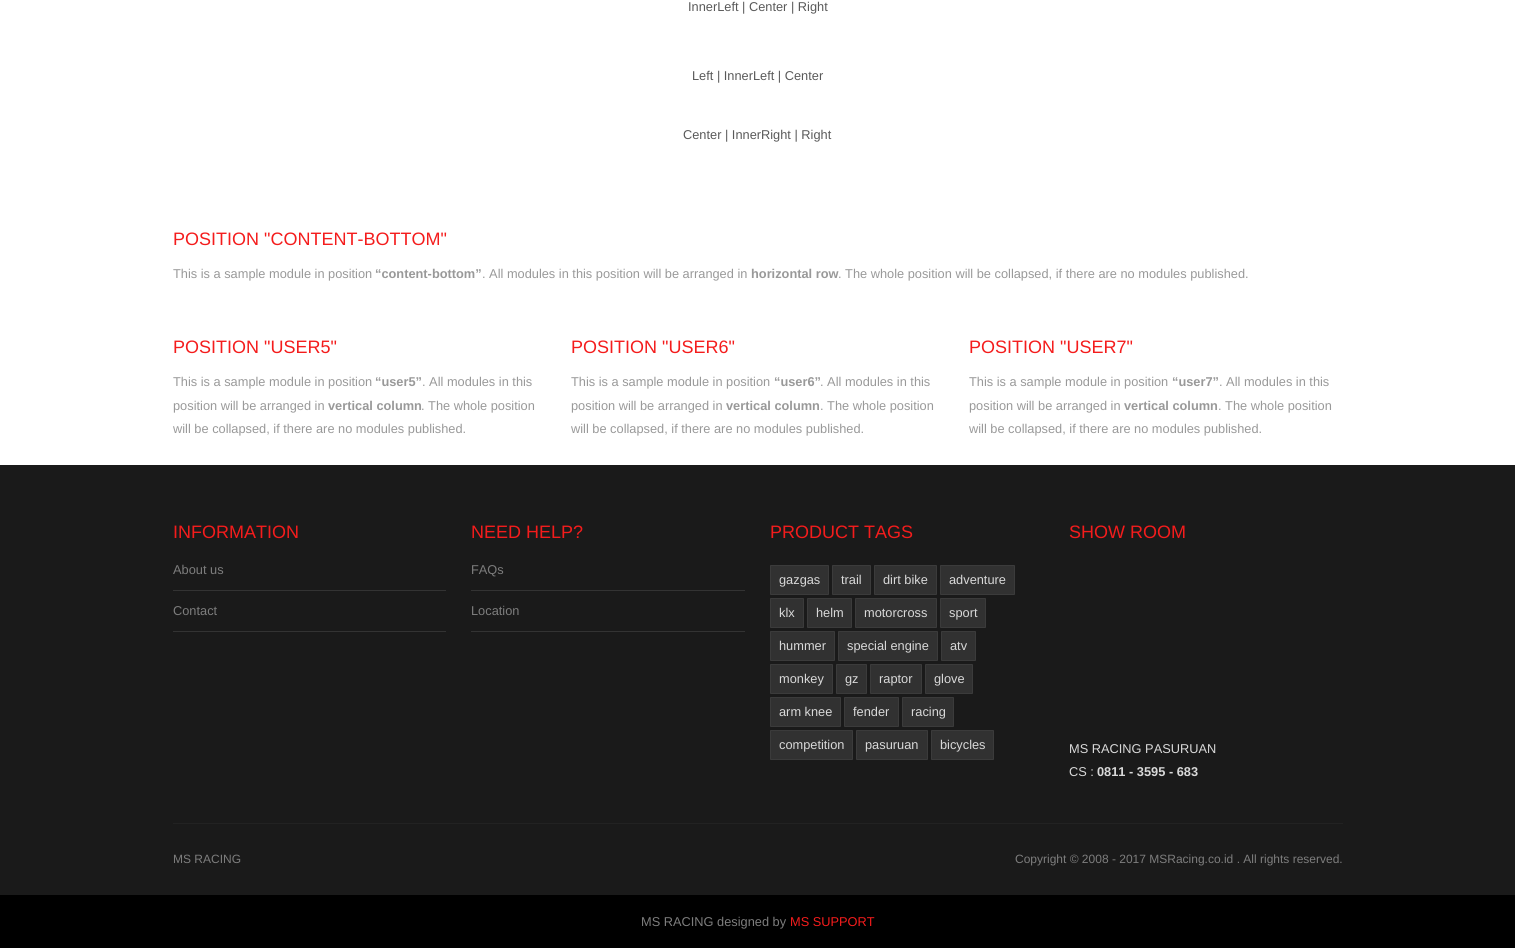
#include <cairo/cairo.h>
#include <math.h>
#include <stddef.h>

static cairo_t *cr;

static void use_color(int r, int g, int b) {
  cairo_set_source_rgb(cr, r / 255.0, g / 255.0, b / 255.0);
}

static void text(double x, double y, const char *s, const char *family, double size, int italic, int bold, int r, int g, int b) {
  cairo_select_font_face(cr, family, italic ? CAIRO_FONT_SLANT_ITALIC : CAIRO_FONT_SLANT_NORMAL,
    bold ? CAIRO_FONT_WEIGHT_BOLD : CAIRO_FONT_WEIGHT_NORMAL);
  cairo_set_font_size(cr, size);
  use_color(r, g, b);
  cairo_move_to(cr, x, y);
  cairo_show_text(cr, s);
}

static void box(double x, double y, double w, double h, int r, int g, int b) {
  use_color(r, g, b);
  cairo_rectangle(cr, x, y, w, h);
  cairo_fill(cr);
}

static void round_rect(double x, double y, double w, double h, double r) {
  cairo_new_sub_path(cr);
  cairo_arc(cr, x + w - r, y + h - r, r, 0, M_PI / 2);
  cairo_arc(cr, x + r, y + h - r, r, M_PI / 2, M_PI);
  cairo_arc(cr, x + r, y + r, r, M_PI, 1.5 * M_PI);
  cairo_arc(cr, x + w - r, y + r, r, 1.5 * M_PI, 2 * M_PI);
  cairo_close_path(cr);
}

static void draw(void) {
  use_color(255, 255, 255);
  cairo_paint(cr);
  box(0, 465, 1515, 430, 26, 26, 26);
  box(173, 590, 273, 1, 51, 51, 51);
  box(173, 631, 273, 1, 51, 51, 51);
  box(471, 590, 274, 1, 51, 51, 51);
  box(471, 631, 274, 1, 51, 51, 51);
  use_color(49, 49, 49);
  round_rect(770, 565, 59, 30, 1);
  cairo_fill(cr);
  cairo_rectangle(cr, 770.5, 565.5, 58, 29);
  cairo_set_source_rgba(cr, 1, 1, 1, 0.05);
  cairo_set_line_width(cr, 1);
  cairo_stroke(cr);
  use_color(49, 49, 49);
  round_rect(832, 565, 39, 30, 1);
  cairo_fill(cr);
  cairo_rectangle(cr, 832.5, 565.5, 38, 29);
  cairo_set_source_rgba(cr, 1, 1, 1, 0.05);
  cairo_stroke(cr);
  use_color(49, 49, 49);
  round_rect(874, 565, 63, 30, 1);
  cairo_fill(cr);
  cairo_rectangle(cr, 874.5, 565.5, 62, 29);
  cairo_set_source_rgba(cr, 1, 1, 1, 0.05);
  cairo_stroke(cr);
  use_color(49, 49, 49);
  round_rect(940, 565, 75, 30, 1);
  cairo_fill(cr);
  cairo_rectangle(cr, 940.5, 565.5, 74, 29);
  cairo_set_source_rgba(cr, 1, 1, 1, 0.05);
  cairo_stroke(cr);
  use_color(49, 49, 49);
  round_rect(770, 598, 34, 30, 1);
  cairo_fill(cr);
  cairo_rectangle(cr, 770.5, 598.5, 33, 29);
  cairo_set_source_rgba(cr, 1, 1, 1, 0.05);
  cairo_stroke(cr);
  use_color(49, 49, 49);
  round_rect(807, 598, 45, 30, 1);
  cairo_fill(cr);
  cairo_rectangle(cr, 807.5, 598.5, 44, 29);
  cairo_set_source_rgba(cr, 1, 1, 1, 0.05);
  cairo_stroke(cr);
  use_color(49, 49, 49);
  round_rect(855, 598, 82, 30, 1);
  cairo_fill(cr);
  cairo_rectangle(cr, 855.5, 598.5, 81, 29);
  cairo_set_source_rgba(cr, 1, 1, 1, 0.05);
  cairo_stroke(cr);
  use_color(49, 49, 49);
  round_rect(940, 598, 46, 30, 1);
  cairo_fill(cr);
  cairo_rectangle(cr, 940.5, 598.5, 45, 29);
  cairo_set_source_rgba(cr, 1, 1, 1, 0.05);
  cairo_stroke(cr);
  use_color(49, 49, 49);
  round_rect(770, 631, 65, 30, 1);
  cairo_fill(cr);
  cairo_rectangle(cr, 770.5, 631.5, 64, 29);
  cairo_set_source_rgba(cr, 1, 1, 1, 0.05);
  cairo_stroke(cr);
  use_color(49, 49, 49);
  round_rect(838, 631, 100, 30, 1);
  cairo_fill(cr);
  cairo_rectangle(cr, 838.5, 631.5, 99, 29);
  cairo_set_source_rgba(cr, 1, 1, 1, 0.05);
  cairo_stroke(cr);
  use_color(49, 49, 49);
  round_rect(941, 631, 35, 30, 1);
  cairo_fill(cr);
  cairo_rectangle(cr, 941.5, 631.5, 34, 29);
  cairo_set_source_rgba(cr, 1, 1, 1, 0.05);
  cairo_stroke(cr);
  use_color(49, 49, 49);
  round_rect(770, 664, 63, 30, 1);
  cairo_fill(cr);
  cairo_rectangle(cr, 770.5, 664.5, 62, 29);
  cairo_set_source_rgba(cr, 1, 1, 1, 0.05);
  cairo_stroke(cr);
  use_color(49, 49, 49);
  round_rect(836, 664, 31, 30, 1);
  cairo_fill(cr);
  cairo_rectangle(cr, 836.5, 664.5, 30, 29);
  cairo_set_source_rgba(cr, 1, 1, 1, 0.05);
  cairo_stroke(cr);
  use_color(49, 49, 49);
  round_rect(870, 664, 52, 30, 1);
  cairo_fill(cr);
  cairo_rectangle(cr, 870.5, 664.5, 51, 29);
  cairo_set_source_rgba(cr, 1, 1, 1, 0.05);
  cairo_stroke(cr);
  use_color(49, 49, 49);
  round_rect(925, 664, 48, 30, 1);
  cairo_fill(cr);
  cairo_rectangle(cr, 925.5, 664.5, 47, 29);
  cairo_set_source_rgba(cr, 1, 1, 1, 0.05);
  cairo_stroke(cr);
  use_color(49, 49, 49);
  round_rect(770, 697, 71, 30, 1);
  cairo_fill(cr);
  cairo_rectangle(cr, 770.5, 697.5, 70, 29);
  cairo_set_source_rgba(cr, 1, 1, 1, 0.05);
  cairo_stroke(cr);
  use_color(49, 49, 49);
  round_rect(844, 697, 55, 30, 1);
  cairo_fill(cr);
  cairo_rectangle(cr, 844.5, 697.5, 54, 29);
  cairo_set_source_rgba(cr, 1, 1, 1, 0.05);
  cairo_stroke(cr);
  use_color(49, 49, 49);
  round_rect(902, 697, 52, 30, 1);
  cairo_fill(cr);
  cairo_rectangle(cr, 902.5, 697.5, 51, 29);
  cairo_set_source_rgba(cr, 1, 1, 1, 0.05);
  cairo_stroke(cr);
  use_color(49, 49, 49);
  round_rect(770, 730, 83, 30, 1);
  cairo_fill(cr);
  cairo_rectangle(cr, 770.5, 730.5, 82, 29);
  cairo_set_source_rgba(cr, 1, 1, 1, 0.05);
  cairo_stroke(cr);
  use_color(49, 49, 49);
  round_rect(856, 730, 72, 30, 1);
  cairo_fill(cr);
  cairo_rectangle(cr, 856.5, 730.5, 71, 29);
  cairo_set_source_rgba(cr, 1, 1, 1, 0.05);
  cairo_stroke(cr);
  use_color(49, 49, 49);
  round_rect(931, 730, 63, 30, 1);
  cairo_fill(cr);
  cairo_rectangle(cr, 931.5, 730.5, 62, 29);
  cairo_set_source_rgba(cr, 1, 1, 1, 0.05);
  cairo_stroke(cr);
  box(173, 823, 1170, 1, 34, 34, 34);
  box(0, 895, 1515, 53, 0, 0, 0);
  text(688, 11, "InnerLeft | Center | Right", "Liberation Sans", 12.8, 0, 0, 89, 89, 89);
  text(692, 80, "Left | InnerLeft | Center", "Liberation Sans", 12.8, 0, 0, 89, 89, 89);
  text(683, 139, "Center | InnerRight | Right", "Liberation Sans", 12.8, 0, 0, 89, 89, 89);
  text(173, 245, "POSITION \"CONTENT-BOTTOM\"", "Liberation Sans", 18, 0, 0, 244, 28, 28);
  text(173, 278, "This is a sample module in position", "Liberation Sans", 12.8, 0, 0, 153, 153, 153);
  text(375, 278, "“content-bottom”", "Liberation Sans", 12.8, 0, 1, 153, 153, 153);
  text(482, 278, ". All modules in this position will be arranged in", "Liberation Sans", 12.8, 0, 0, 153, 153, 153);
  text(751, 278, "horizontal row", "Liberation Sans", 12.8, 0, 1, 153, 153, 153);
  text(838, 278, ". The whole position will be collapsed, if there are no modules published.", "Liberation Sans", 12.8, 0, 0, 153, 153, 153);
  text(173, 353, "POSITION \"USER5\"", "Liberation Sans", 18, 0, 0, 244, 28, 28);
  text(173, 386, "This is a sample module in position", "Liberation Sans", 12.8, 0, 0, 153, 153, 153);
  text(375, 386, "“user5”", "Liberation Sans", 12.8, 0, 1, 153, 153, 153);
  text(422, 386, ". All modules in this", "Liberation Sans", 12.8, 0, 0, 153, 153, 153);
  text(173, 410, "position will be arranged in", "Liberation Sans", 12.8, 0, 0, 153, 153, 153);
  text(328, 410, "vertical column", "Liberation Sans", 12.8, 0, 1, 153, 153, 153);
  text(421, 410, ". The whole position", "Liberation Sans", 12.8, 0, 0, 153, 153, 153);
  text(173, 433, "will be collapsed, if there are no modules published.", "Liberation Sans", 12.8, 0, 0, 153, 153, 153);
  text(571, 353, "POSITION \"USER6\"", "Liberation Sans", 18, 0, 0, 244, 28, 28);
  text(571, 386, "This is a sample module in position", "Liberation Sans", 12.8, 0, 0, 153, 153, 153);
  text(774, 386, "“user6”", "Liberation Sans", 12.8, 0, 1, 153, 153, 153);
  text(820, 386, ". All modules in this", "Liberation Sans", 12.8, 0, 0, 153, 153, 153);
  text(571, 410, "position will be arranged in", "Liberation Sans", 12.8, 0, 0, 153, 153, 153);
  text(726, 410, "vertical column", "Liberation Sans", 12.8, 0, 1, 153, 153, 153);
  text(820, 410, ". The whole position", "Liberation Sans", 12.8, 0, 0, 153, 153, 153);
  text(571, 433, "will be collapsed, if there are no modules published.", "Liberation Sans", 12.8, 0, 0, 153, 153, 153);
  text(969, 353, "POSITION \"USER7\"", "Liberation Sans", 18, 0, 0, 244, 28, 28);
  text(969, 386, "This is a sample module in position", "Liberation Sans", 12.8, 0, 0, 153, 153, 153);
  text(1172, 386, "“user7”", "Liberation Sans", 12.8, 0, 1, 153, 153, 153);
  text(1219, 386, ". All modules in this", "Liberation Sans", 12.8, 0, 0, 153, 153, 153);
  text(969, 410, "position will be arranged in", "Liberation Sans", 12.8, 0, 0, 153, 153, 153);
  text(1124, 410, "vertical column", "Liberation Sans", 12.8, 0, 1, 153, 153, 153);
  text(1218, 410, ". The whole position", "Liberation Sans", 12.8, 0, 0, 153, 153, 153);
  text(969, 433, "will be collapsed, if there are no modules published.", "Liberation Sans", 12.8, 0, 0, 153, 153, 153);
  text(173, 538, "INFORMATION", "Liberation Sans", 18, 0, 0, 244, 28, 28);
  text(173, 574, "About us", "Liberation Sans", 12.8, 0, 0, 125, 125, 125);
  text(173, 615, "Contact", "Liberation Sans", 12.8, 0, 0, 125, 125, 125);
  text(471, 538, "NEED HELP?", "Liberation Sans", 18, 0, 0, 244, 28, 28);
  text(471, 574, "FAQs", "Liberation Sans", 12.8, 0, 0, 125, 125, 125);
  text(471, 615, "Location", "Liberation Sans", 12.8, 0, 0, 125, 125, 125);
  text(770, 538, "PRODUCT TAGS", "Liberation Sans", 18, 0, 0, 244, 28, 28);
  text(779, 584, "gazgas", "Liberation Sans", 12.8, 0, 0, 217, 217, 217);
  text(841, 584, "trail", "Liberation Sans", 12.8, 0, 0, 217, 217, 217);
  text(883, 584, "dirt bike", "Liberation Sans", 12.8, 0, 0, 217, 217, 217);
  text(949, 584, "adventure", "Liberation Sans", 12.8, 0, 0, 217, 217, 217);
  text(779, 617, "klx", "Liberation Sans", 12.8, 0, 0, 217, 217, 217);
  text(816, 617, "helm", "Liberation Sans", 12.8, 0, 0, 217, 217, 217);
  text(864, 617, "motorcross", "Liberation Sans", 12.8, 0, 0, 217, 217, 217);
  text(949, 617, "sport", "Liberation Sans", 12.8, 0, 0, 217, 217, 217);
  text(779, 650, "hummer", "Liberation Sans", 12.8, 0, 0, 217, 217, 217);
  text(847, 650, "special engine", "Liberation Sans", 12.8, 0, 0, 217, 217, 217);
  text(950, 650, "atv", "Liberation Sans", 12.8, 0, 0, 217, 217, 217);
  text(779, 683, "monkey", "Liberation Sans", 12.8, 0, 0, 217, 217, 217);
  text(845, 683, "gz", "Liberation Sans", 12.8, 0, 0, 217, 217, 217);
  text(879, 683, "raptor", "Liberation Sans", 12.8, 0, 0, 217, 217, 217);
  text(934, 683, "glove", "Liberation Sans", 12.8, 0, 0, 217, 217, 217);
  text(779, 716, "arm knee", "Liberation Sans", 12.8, 0, 0, 217, 217, 217);
  text(853, 716, "fender", "Liberation Sans", 12.8, 0, 0, 217, 217, 217);
  text(911, 716, "racing", "Liberation Sans", 12.8, 0, 0, 217, 217, 217);
  text(779, 749, "competition", "Liberation Sans", 12.8, 0, 0, 217, 217, 217);
  text(865, 749, "pasuruan", "Liberation Sans", 12.8, 0, 0, 217, 217, 217);
  text(940, 749, "bicycles", "Liberation Sans", 12.8, 0, 0, 217, 217, 217);
  text(1069, 538, "SHOW ROOM", "Liberation Sans", 18, 0, 0, 244, 28, 28);
  text(1069, 753, "MS RACING PASURUAN", "Liberation Sans", 12.8, 0, 0, 217, 217, 217);
  text(1069, 776, "CS :", "Liberation Sans", 12.8, 0, 0, 217, 217, 217);
  text(1097, 776, "0811 - 3595 - 683", "Liberation Sans", 12.8, 0, 1, 217, 217, 217);
  text(173, 863, "MS RACING", "Liberation Sans", 12, 0, 0, 125, 125, 125);
  text(1015, 863, "Copyright © 2008 - 2017 MSRacing.co.id . All rights reserved.", "Liberation Sans", 12, 0, 0, 125, 125, 125);
  text(641, 926, "MS RACING designed by", "Liberation Sans", 12.8, 0, 0, 125, 125, 125);
  text(790, 926, "MS SUPPORT", "Liberation Sans", 12.8, 0, 0, 244, 28, 28);
}

int main(void) {
  cairo_surface_t *surface = cairo_image_surface_create(CAIRO_FORMAT_RGB24, 1515, 948);
  cr = cairo_create(surface);
  cairo_font_options_t *options = cairo_font_options_create();
  cairo_font_options_set_hint_metrics(options, CAIRO_HINT_METRICS_OFF);
  cairo_font_options_set_hint_style(options, CAIRO_HINT_STYLE_NONE);
  cairo_set_font_options(cr, options);
  cairo_set_miter_limit(cr, 4);
  draw();
  cairo_surface_write_to_png(surface, "out.png");
  cairo_font_options_destroy(options);
  cairo_destroy(cr);
  cairo_surface_destroy(surface);
  return 0;
}
